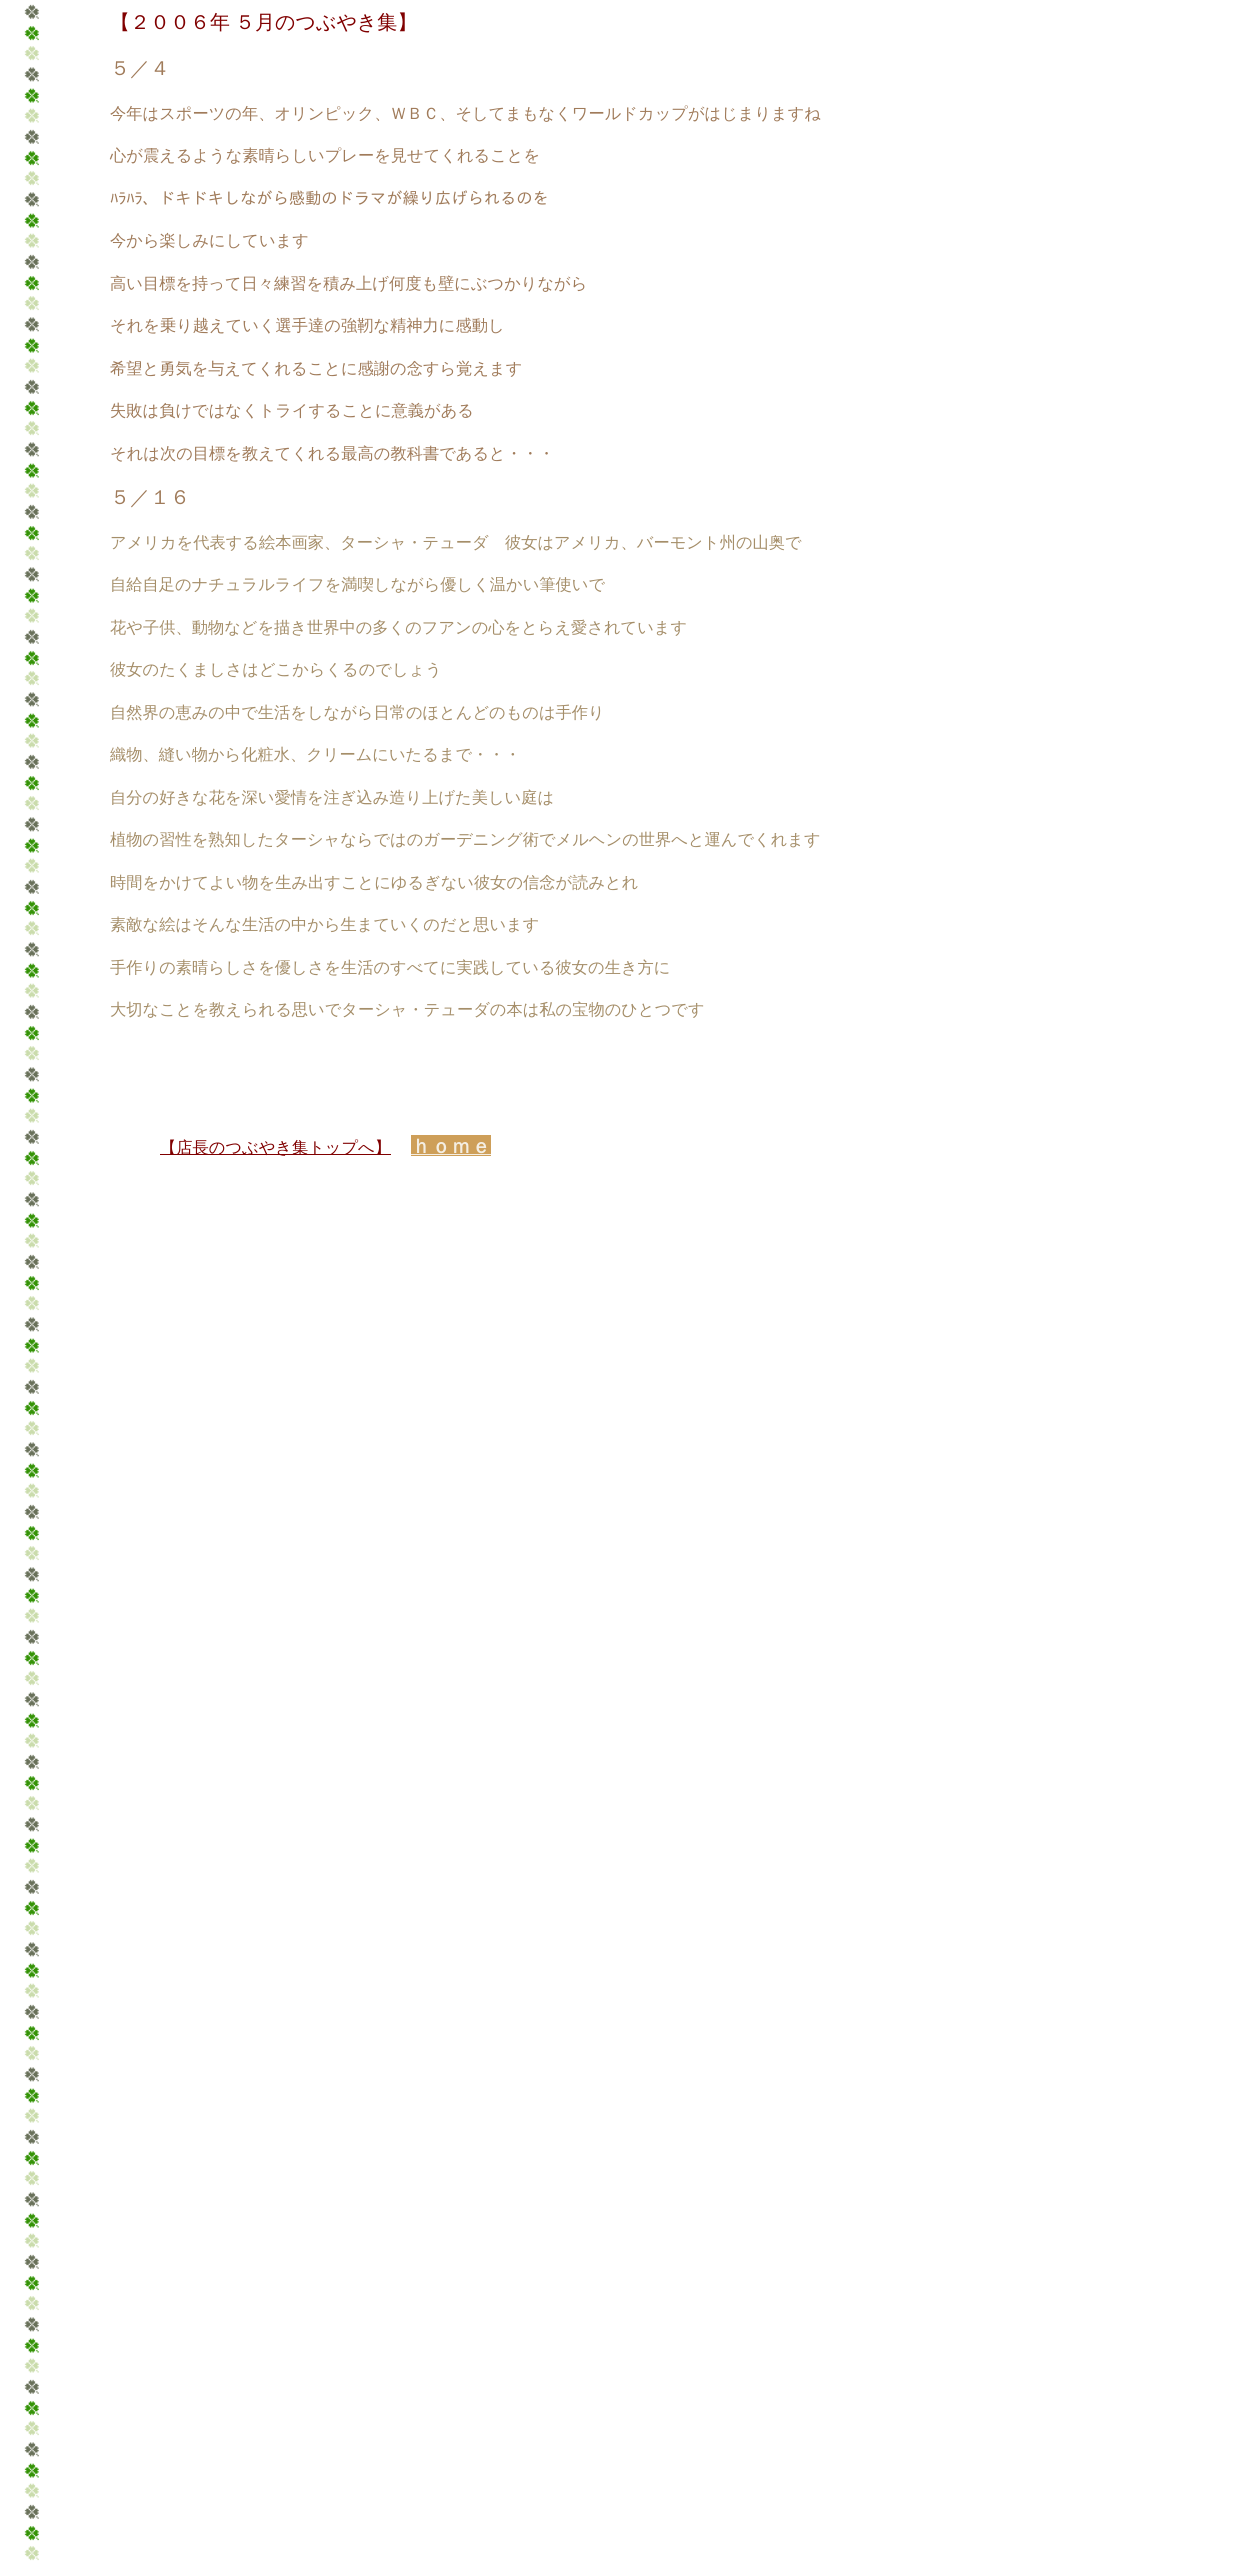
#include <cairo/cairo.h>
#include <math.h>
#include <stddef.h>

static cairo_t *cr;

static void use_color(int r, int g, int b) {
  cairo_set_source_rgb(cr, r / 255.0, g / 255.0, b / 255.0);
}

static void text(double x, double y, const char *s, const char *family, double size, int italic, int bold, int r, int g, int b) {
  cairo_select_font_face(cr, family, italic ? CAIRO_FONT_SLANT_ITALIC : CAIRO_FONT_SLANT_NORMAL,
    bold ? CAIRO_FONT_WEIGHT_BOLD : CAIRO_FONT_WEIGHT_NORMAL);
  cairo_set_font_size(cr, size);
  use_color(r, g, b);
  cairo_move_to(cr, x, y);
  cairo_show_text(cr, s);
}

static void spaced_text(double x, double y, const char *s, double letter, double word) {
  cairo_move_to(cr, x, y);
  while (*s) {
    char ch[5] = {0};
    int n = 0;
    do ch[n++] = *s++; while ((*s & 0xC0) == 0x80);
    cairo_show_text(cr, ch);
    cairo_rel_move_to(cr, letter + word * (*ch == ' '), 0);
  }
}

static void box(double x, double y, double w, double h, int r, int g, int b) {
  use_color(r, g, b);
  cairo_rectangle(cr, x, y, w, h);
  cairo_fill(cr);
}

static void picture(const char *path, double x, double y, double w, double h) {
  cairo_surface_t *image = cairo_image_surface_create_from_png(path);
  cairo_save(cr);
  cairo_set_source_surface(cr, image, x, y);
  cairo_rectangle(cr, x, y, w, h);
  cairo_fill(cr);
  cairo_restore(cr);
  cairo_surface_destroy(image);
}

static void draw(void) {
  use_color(255, 255, 255);
  cairo_paint(cr);
  picture("img_01.png", 0, 0, 1233, 2565);
  box(160, 1154, 231, 1, 128, 0, 0);
  box(411, 1135, 80, 21, 206, 159, 89);
  box(411, 1154, 80, 1, 244, 238, 227);
  cairo_select_font_face(cr, "WenQuanYi Zen Hei Medium", CAIRO_FONT_SLANT_NORMAL, CAIRO_FONT_WEIGHT_NORMAL);
  cairo_set_font_size(cr, 20);
  use_color(128, 0, 0);
  spaced_text(110, 29, "【２００６年 ５月のつぶやき集】", 0, -1);
  text(110, 75, "５／４", "WenQuanYi Zen Hei Medium", 20, 0, 0, 160, 123, 90);
  text(110, 119, "今年はスポーツの年、オリンピック、ＷＢＣ、そしてまもなくワールドカップがはじまりますね", "WenQuanYi Zen Hei Medium", 16.25, 0, 0, 160, 123, 90);
  text(110, 161, "心が震えるような素晴らしいプレーを見せてくれることを", "WenQuanYi Zen Hei Medium", 16.25, 0, 0, 160, 123, 90);
  text(110, 204, "ﾊﾗﾊﾗ、ドキドキしながら感動のドラマが繰り広げられるのを", "IPAGothic", 16.25, 0, 0, 160, 123, 90);
  text(110, 246, "今から楽しみにしています", "WenQuanYi Zen Hei Medium", 16.25, 0, 0, 160, 123, 90);
  text(110, 289, "高い目標を持って日々練習を積み上げ何度も壁にぶつかりながら", "WenQuanYi Zen Hei Medium", 16.25, 0, 0, 160, 123, 90);
  text(110, 331, "それを乗り越えていく選手達の強靭な精神力に感動し", "WenQuanYi Zen Hei Medium", 16.25, 0, 0, 160, 123, 90);
  text(110, 374, "希望と勇気を与えてくれることに感謝の念すら覚えます", "WenQuanYi Zen Hei Medium", 16.25, 0, 0, 160, 123, 90);
  text(110, 416, "失敗は負けではなくトライすることに意義がある", "WenQuanYi Zen Hei Medium", 16.25, 0, 0, 160, 123, 90);
  text(110, 459, "それは次の目標を教えてくれる最高の教科書であると・・・", "WenQuanYi Zen Hei Medium", 16.25, 0, 0, 160, 123, 90);
  text(110, 504, "５／１６", "WenQuanYi Zen Hei Medium", 20, 0, 0, 160, 123, 90);
  text(110, 548, "アメリカを代表する絵本画家、ターシャ・テューダ　彼女はアメリカ、バーモント州の山奥で", "WenQuanYi Zen Hei Medium", 16.25, 0, 0, 165, 142, 105);
  text(110, 590, "自給自足のナチュラルライフを満喫しながら優しく温かい筆使いで", "WenQuanYi Zen Hei Medium", 16.25, 0, 0, 165, 142, 105);
  text(110, 633, "花や子供、動物などを描き世界中の多くのフアンの心をとらえ愛されています", "WenQuanYi Zen Hei Medium", 16.25, 0, 0, 165, 142, 105);
  text(110, 675, "彼女のたくましさはどこからくるのでしょう", "WenQuanYi Zen Hei Medium", 16.25, 0, 0, 165, 142, 105);
  text(110, 718, "自然界の恵みの中で生活をしながら日常のほとんどのものは手作り", "WenQuanYi Zen Hei Medium", 16.25, 0, 0, 165, 142, 105);
  text(110, 760, "織物、縫い物から化粧水、クリームにいたるまで・・・", "WenQuanYi Zen Hei Medium", 16.25, 0, 0, 165, 142, 105);
  text(110, 803, "自分の好きな花を深い愛情を注ぎ込み造り上げた美しい庭は", "WenQuanYi Zen Hei Medium", 16.25, 0, 0, 165, 142, 105);
  text(110, 845, "植物の習性を熟知したターシャならではのガーデニング術でメルヘンの世界へと運んでくれます", "WenQuanYi Zen Hei Medium", 16.25, 0, 0, 165, 142, 105);
  text(110, 888, "時間をかけてよい物を生み出すことにゆるぎない彼女の信念が読みとれ", "WenQuanYi Zen Hei Medium", 16.25, 0, 0, 165, 142, 105);
  text(110, 930, "素敵な絵はそんな生活の中から生まていくのだと思います", "WenQuanYi Zen Hei Medium", 16.25, 0, 0, 165, 142, 105);
  text(110, 973, "手作りの素晴らしさを優しさを生活のすべてに実践している彼女の生き方に", "WenQuanYi Zen Hei Medium", 16.25, 0, 0, 165, 142, 105);
  text(110, 1015, "大切なことを教えられる思いでターシャ・テューダの本は私の宝物のひとつです", "WenQuanYi Zen Hei Medium", 16.25, 0, 0, 165, 142, 105);
  text(160, 1153, "【店長のつぶやき集トップへ】", "WenQuanYi Zen Hei Medium", 16.25, 0, 0, 128, 0, 0);
  text(411, 1153, "ｈｏｍｅ", "WenQuanYi Zen Hei", 20, 0, 1, 244, 238, 227);
}

int main(void) {
  cairo_surface_t *surface = cairo_image_surface_create(CAIRO_FORMAT_RGB24, 1233, 2565);
  cr = cairo_create(surface);
  cairo_font_options_t *options = cairo_font_options_create();
  cairo_font_options_set_hint_metrics(options, CAIRO_HINT_METRICS_OFF);
  cairo_font_options_set_hint_style(options, CAIRO_HINT_STYLE_NONE);
  cairo_set_font_options(cr, options);
  cairo_set_miter_limit(cr, 4);
  draw();
  cairo_surface_write_to_png(surface, "out.png");
  cairo_font_options_destroy(options);
  cairo_destroy(cr);
  cairo_surface_destroy(surface);
  return 0;
}
